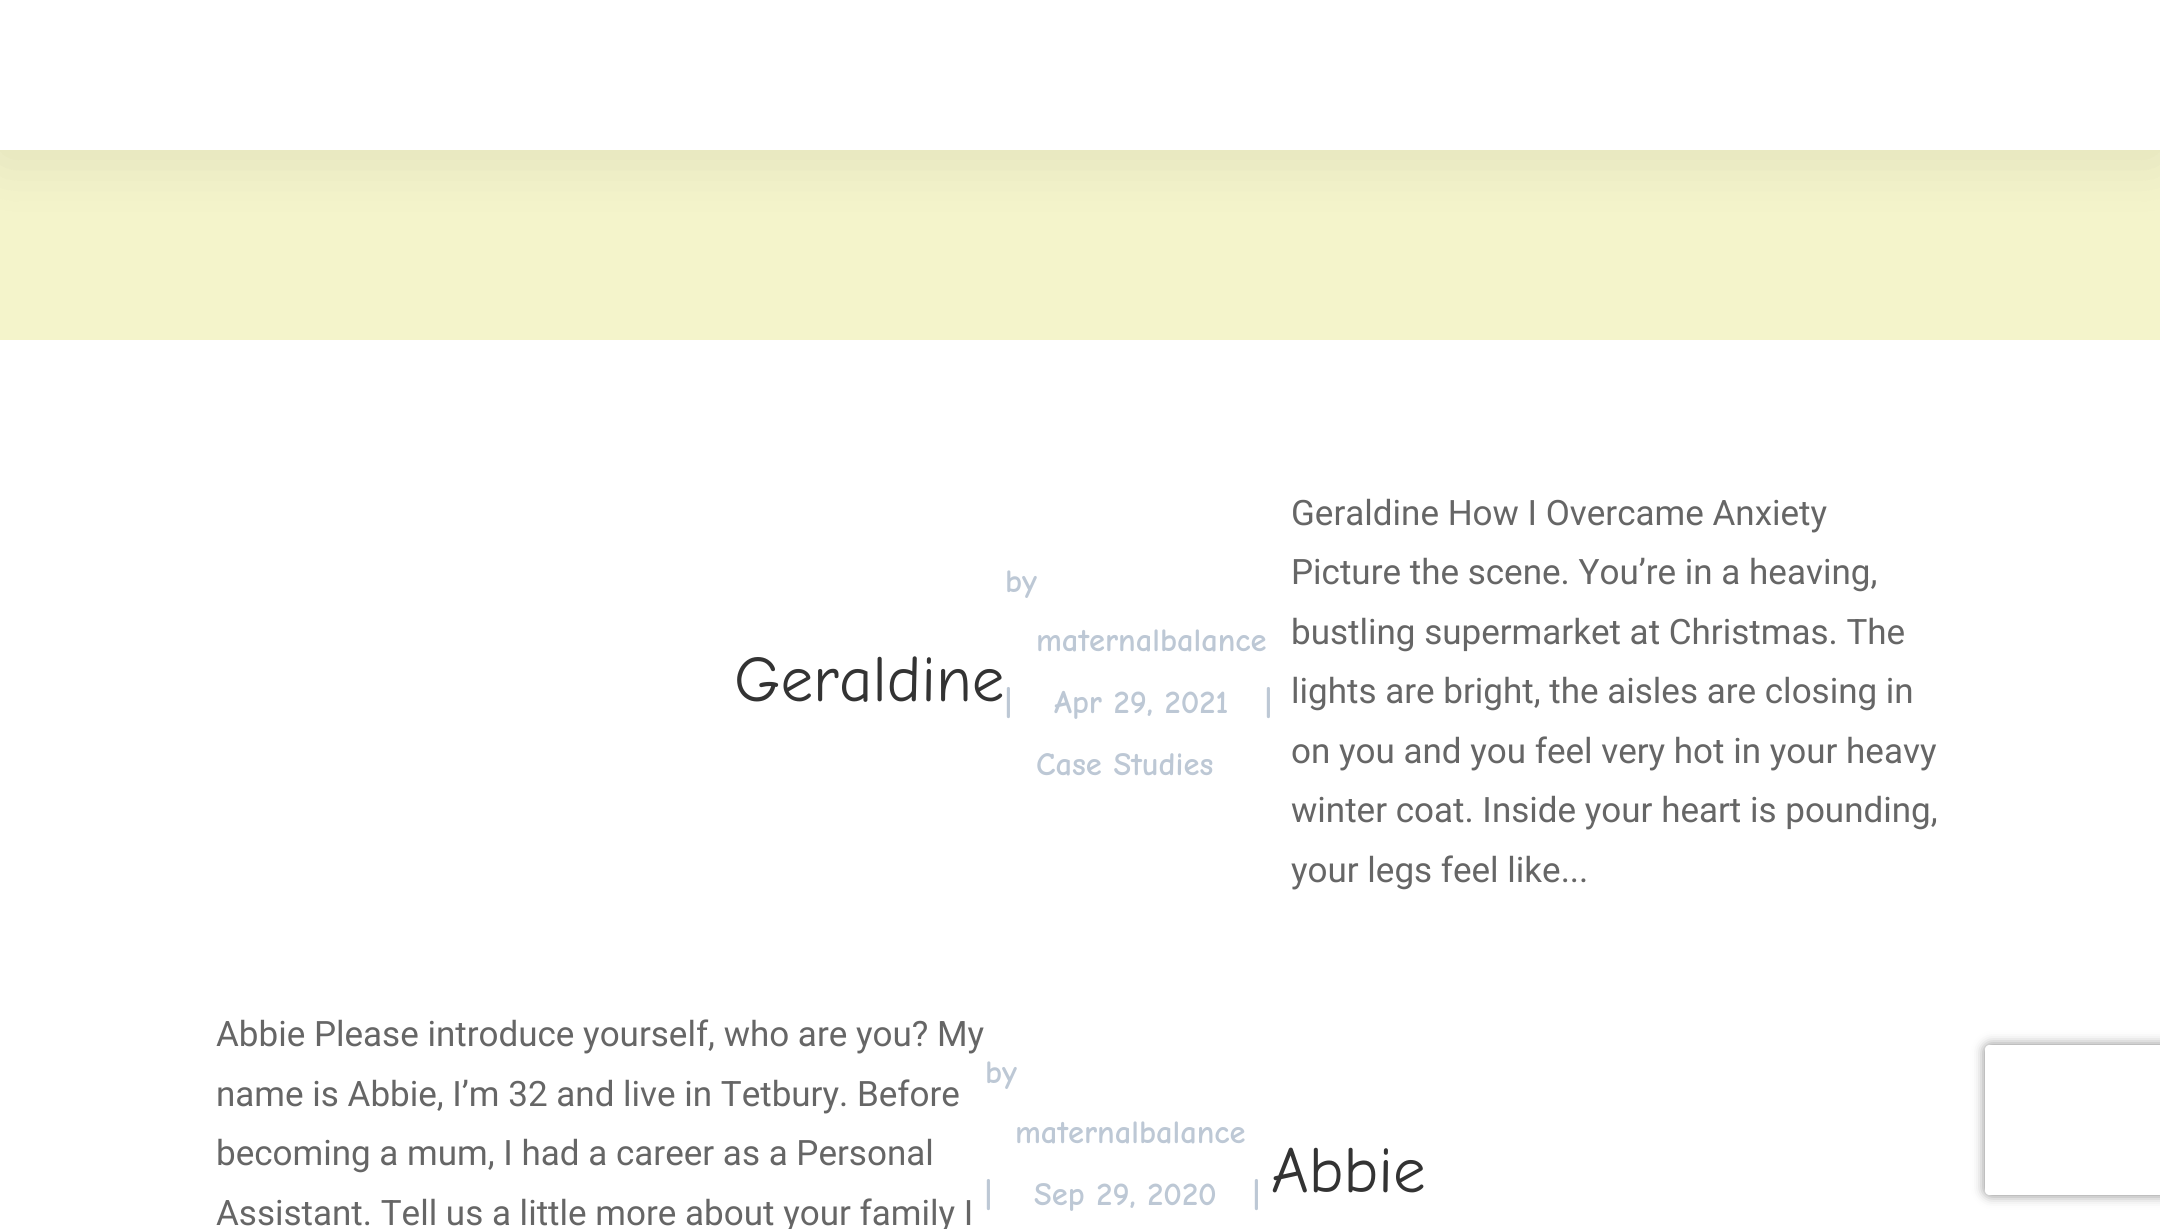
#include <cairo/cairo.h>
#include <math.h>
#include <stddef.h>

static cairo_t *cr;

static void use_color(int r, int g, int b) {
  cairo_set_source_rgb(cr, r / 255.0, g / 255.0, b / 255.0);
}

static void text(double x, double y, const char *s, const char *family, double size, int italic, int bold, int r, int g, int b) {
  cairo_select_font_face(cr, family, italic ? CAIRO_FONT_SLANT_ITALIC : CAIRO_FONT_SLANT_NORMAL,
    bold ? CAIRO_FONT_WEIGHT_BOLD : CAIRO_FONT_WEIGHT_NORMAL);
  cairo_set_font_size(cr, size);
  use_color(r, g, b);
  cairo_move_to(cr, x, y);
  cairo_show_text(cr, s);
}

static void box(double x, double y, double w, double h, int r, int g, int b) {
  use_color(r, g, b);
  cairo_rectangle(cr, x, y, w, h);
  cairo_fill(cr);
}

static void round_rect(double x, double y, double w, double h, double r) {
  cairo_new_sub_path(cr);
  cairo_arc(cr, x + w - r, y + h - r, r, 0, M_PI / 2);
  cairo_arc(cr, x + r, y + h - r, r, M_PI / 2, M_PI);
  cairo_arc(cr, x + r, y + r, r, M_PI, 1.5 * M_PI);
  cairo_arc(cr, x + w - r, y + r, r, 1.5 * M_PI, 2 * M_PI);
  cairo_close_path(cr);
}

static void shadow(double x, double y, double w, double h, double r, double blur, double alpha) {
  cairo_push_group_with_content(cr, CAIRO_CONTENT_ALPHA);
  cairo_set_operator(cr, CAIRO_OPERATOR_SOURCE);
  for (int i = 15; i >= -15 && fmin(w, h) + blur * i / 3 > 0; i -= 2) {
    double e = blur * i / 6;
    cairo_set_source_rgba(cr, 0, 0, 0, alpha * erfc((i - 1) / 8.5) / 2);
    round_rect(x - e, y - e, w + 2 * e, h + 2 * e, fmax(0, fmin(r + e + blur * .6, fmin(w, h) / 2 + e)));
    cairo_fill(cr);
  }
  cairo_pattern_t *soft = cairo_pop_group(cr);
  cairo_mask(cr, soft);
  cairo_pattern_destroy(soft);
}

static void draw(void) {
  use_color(244, 244, 203);
  cairo_paint(cr);
  use_color(0, 0, 0);
  shadow(0, 5, 2160, 150, 0, 31, 0.1);
  box(0, 0, 2160, 150, 255, 255, 255);
  box(0, 340, 2160, 889, 255, 255, 255);
  cairo_save(cr);
  cairo_set_fill_rule(cr, CAIRO_FILL_RULE_EVEN_ODD);
  cairo_new_path(cr);
  cairo_move_to(cr, 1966, 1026);
  cairo_line_to(cr, 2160, 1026);
  cairo_line_to(cr, 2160, 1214);
  cairo_line_to(cr, 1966, 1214);
  cairo_close_path(cr);
  cairo_move_to(cr, 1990, 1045);
  cairo_line_to(cr, 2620, 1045);
  cairo_curve_to(cr, 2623, 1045, 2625, 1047, 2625, 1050);
  cairo_line_to(cr, 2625, 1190);
  cairo_curve_to(cr, 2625, 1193, 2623, 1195, 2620, 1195);
  cairo_line_to(cr, 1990, 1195);
  cairo_curve_to(cr, 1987, 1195, 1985, 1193, 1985, 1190);
  cairo_line_to(cr, 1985, 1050);
  cairo_curve_to(cr, 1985, 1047, 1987, 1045, 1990, 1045);
  cairo_close_path(cr);
  cairo_clip(cr);
  use_color(128, 128, 128);
  shadow(1985, 1045, 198, 150, 5, 6, 1);
  cairo_restore(cr);
  text(1291, 525, "Geraldine How I Overcame Anxiety", "Roboto", 35, 0, 0, 102, 102, 102);
  text(1005, 592, "by", "Comic Neue", 32.5, 0, 1, 189, 200, 213);
  text(1036, 651, "maternalbalance", "Comic Neue", 32.5, 0, 1, 189, 200, 213);
  text(1005, 713, "|", "Comic Neue", 32.5, 0, 1, 189, 200, 213);
  text(1054, 713, "Apr 29, 2021", "Comic Neue", 32.5, 0, 1, 189, 200, 213);
  text(1265, 713, "|", "Comic Neue", 32.5, 0, 1, 189, 200, 213);
  text(1036, 775, "Case Studies", "Comic Neue", 32.5, 0, 1, 189, 200, 213);
  text(1291, 584, "Picture the scene. You’re in a heaving,", "Roboto", 35, 0, 0, 102, 102, 102);
  text(1291, 644, "bustling supermarket at Christmas. The", "Roboto", 35, 0, 0, 102, 102, 102);
  text(734, 701, "Geraldine", "Comic Neue", 65, 0, 0, 51, 51, 51);
  text(1291, 703, "lights are bright, the aisles are closing in", "Roboto", 35, 0, 0, 102, 102, 102);
  text(1291, 763, "on you and you feel very hot in your heavy", "Roboto", 35, 0, 0, 102, 102, 102);
  text(1291, 822, "winter coat. Inside your heart is pounding,", "Roboto", 35, 0, 0, 102, 102, 102);
  text(1291, 882, "your legs feel like...", "Roboto", 35, 0, 0, 102, 102, 102);
  text(216, 1046, "Abbie Please introduce yourself, who are you? My", "Roboto", 35, 0, 0, 102, 102, 102);
  text(216, 1106, "name is Abbie, I’m 32 and live in Tetbury. Before", "Roboto", 35, 0, 0, 102, 102, 102);
  text(985, 1083, "by", "Comic Neue", 32.5, 0, 1, 189, 200, 213);
  text(1015, 1143, "maternalbalance", "Comic Neue", 32.5, 0, 1, 189, 200, 213);
  text(985, 1205, "|", "Comic Neue", 32.5, 0, 1, 189, 200, 213);
  text(1034, 1205, "Sep 29, 2020", "Comic Neue", 32.5, 0, 1, 189, 200, 213);
  text(1253, 1205, "|", "Comic Neue", 32.5, 0, 1, 189, 200, 213);
  text(216, 1165, "becoming a mum, I had a career as a Personal", "Roboto", 35, 0, 0, 102, 102, 102);
  text(1271, 1192, "Abbie", "Comic Neue", 65, 0, 0, 51, 51, 51);
  text(216, 1225, "Assistant. Tell us a little more about your family I", "Roboto", 35, 0, 0, 102, 102, 102);
}

int main(void) {
  cairo_surface_t *surface = cairo_image_surface_create(CAIRO_FORMAT_RGB24, 2160, 1229);
  cr = cairo_create(surface);
  cairo_font_options_t *options = cairo_font_options_create();
  cairo_font_options_set_hint_metrics(options, CAIRO_HINT_METRICS_OFF);
  cairo_font_options_set_hint_style(options, CAIRO_HINT_STYLE_NONE);
  cairo_set_font_options(cr, options);
  cairo_set_miter_limit(cr, 4);
  draw();
  cairo_surface_write_to_png(surface, "out.png");
  cairo_font_options_destroy(options);
  cairo_destroy(cr);
  cairo_surface_destroy(surface);
  return 0;
}
